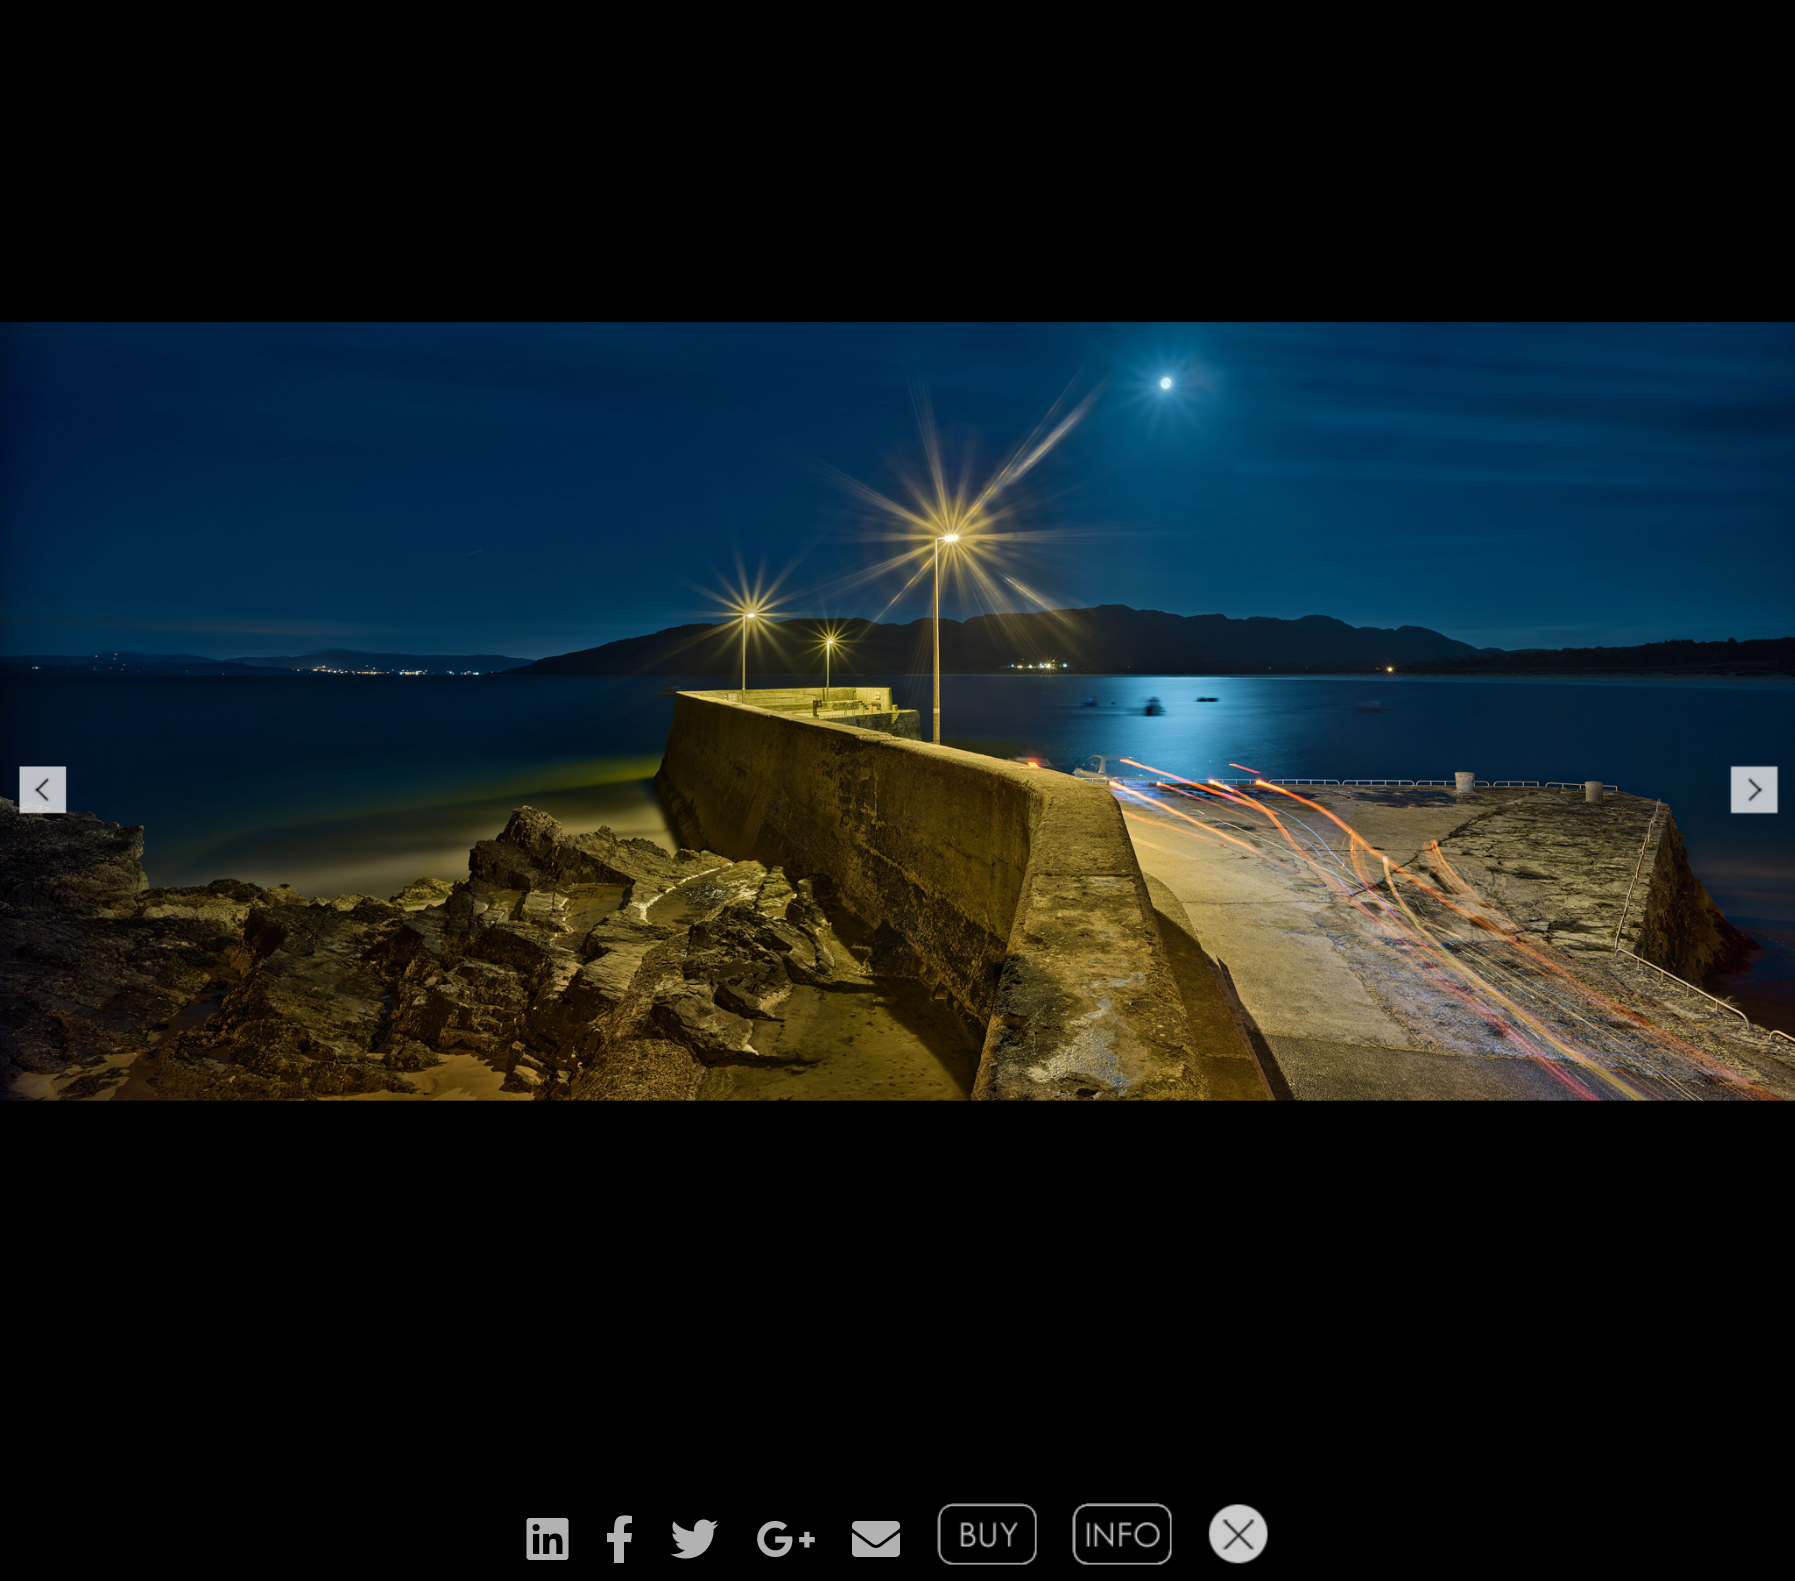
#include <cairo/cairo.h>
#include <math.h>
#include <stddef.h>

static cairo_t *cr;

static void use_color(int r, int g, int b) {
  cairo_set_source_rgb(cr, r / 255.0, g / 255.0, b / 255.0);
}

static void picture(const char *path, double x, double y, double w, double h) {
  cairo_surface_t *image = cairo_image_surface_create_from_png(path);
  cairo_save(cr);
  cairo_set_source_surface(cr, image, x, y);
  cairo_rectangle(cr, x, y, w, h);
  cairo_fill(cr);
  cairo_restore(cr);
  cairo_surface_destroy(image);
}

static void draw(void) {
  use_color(0, 0, 0);
  cairo_paint(cr);
  picture("img_01.png", 0, 322, 1795, 779);
  picture("img_02.png", 19, 766, 48, 48);
  picture("img_03.png", 1730, 765, 49, 49);
  picture("img_04.png", 526, 1518, 43, 42);
  use_color(179, 179, 179);
  cairo_new_path(cr);
  cairo_move_to(cr, 631, 1542);
  cairo_line_to(cr, 624, 1542);
  cairo_line_to(cr, 624, 1563);
  cairo_line_to(cr, 614, 1563);
  cairo_line_to(cr, 614, 1542);
  cairo_line_to(cr, 607, 1542);
  cairo_line_to(cr, 607, 1533);
  cairo_line_to(cr, 614, 1533);
  cairo_curve_to(cr, 614, 1517, 617, 1514, 632, 1516);
  cairo_line_to(cr, 632, 1523);
  cairo_curve_to(cr, 623, 1523, 624, 1525, 624, 1533);
  cairo_line_to(cr, 632, 1533);
  cairo_close_path(cr);
  cairo_fill(cr);
  picture("img_05.png", 670, 1519, 49, 40);
  picture("img_06.png", 757, 1521, 58, 36);
  picture("img_07.png", 852, 1521, 48, 36);
  picture("img_08.png", 937, 1503, 100, 62);
  picture("img_09.png", 1072, 1503, 100, 62);
  picture("img_10.png", 1208, 1504, 60, 60);
}

int main(void) {
  cairo_surface_t *surface = cairo_image_surface_create(CAIRO_FORMAT_RGB24, 1795, 1581);
  cr = cairo_create(surface);
  cairo_font_options_t *options = cairo_font_options_create();
  cairo_font_options_set_hint_metrics(options, CAIRO_HINT_METRICS_OFF);
  cairo_font_options_set_hint_style(options, CAIRO_HINT_STYLE_NONE);
  cairo_set_font_options(cr, options);
  cairo_set_miter_limit(cr, 4);
  draw();
  cairo_surface_write_to_png(surface, "out.png");
  cairo_font_options_destroy(options);
  cairo_destroy(cr);
  cairo_surface_destroy(surface);
  return 0;
}
